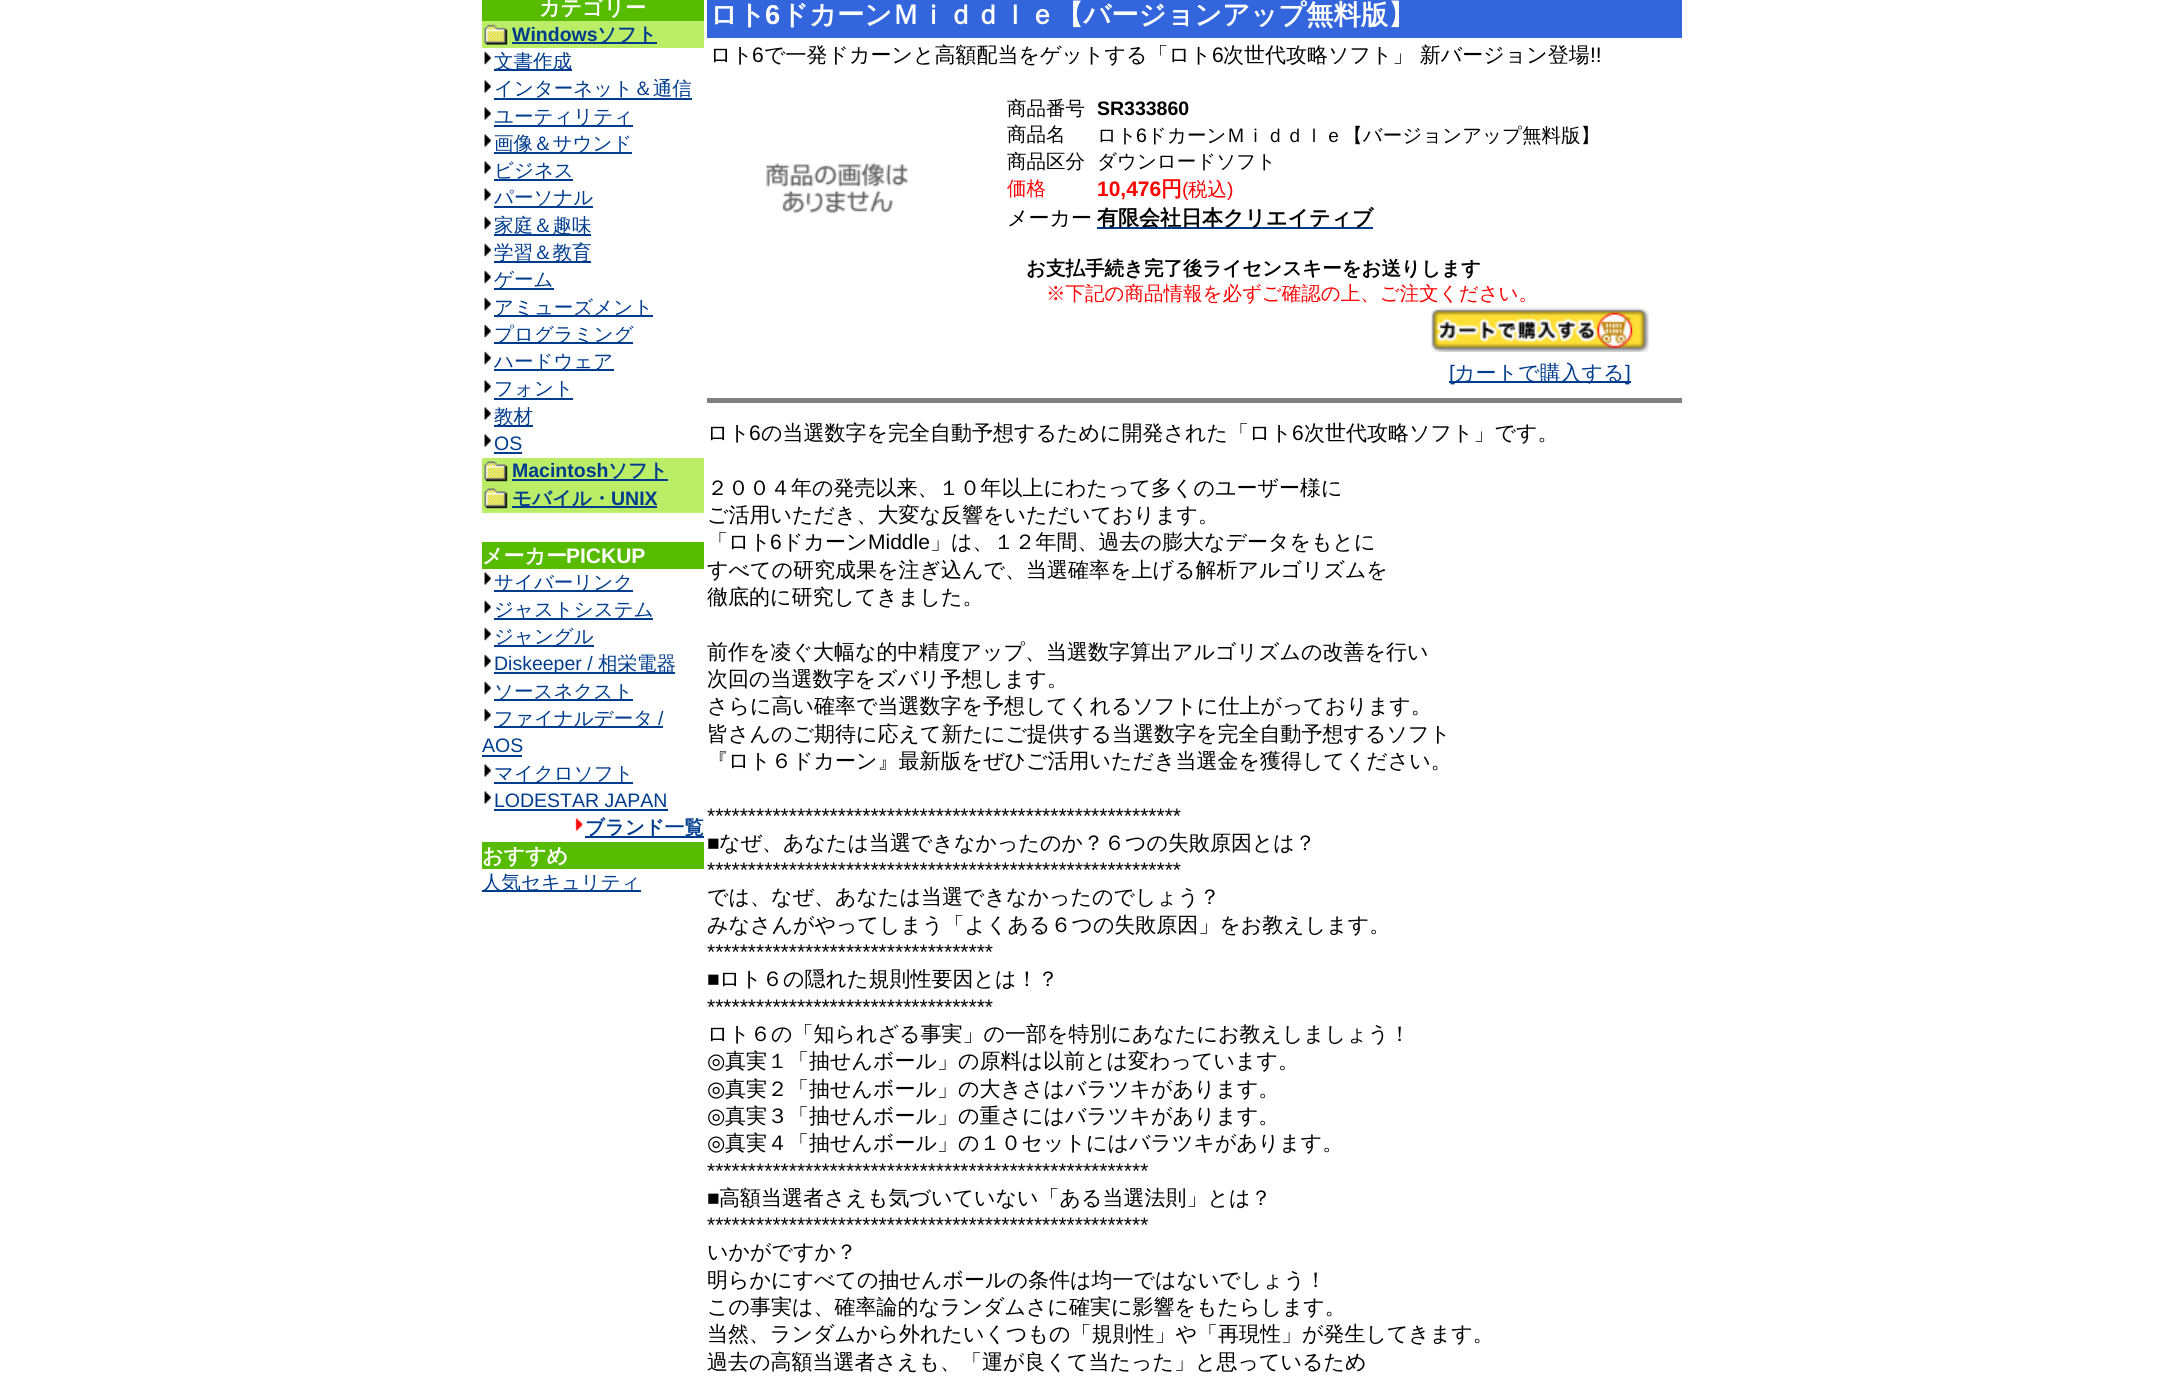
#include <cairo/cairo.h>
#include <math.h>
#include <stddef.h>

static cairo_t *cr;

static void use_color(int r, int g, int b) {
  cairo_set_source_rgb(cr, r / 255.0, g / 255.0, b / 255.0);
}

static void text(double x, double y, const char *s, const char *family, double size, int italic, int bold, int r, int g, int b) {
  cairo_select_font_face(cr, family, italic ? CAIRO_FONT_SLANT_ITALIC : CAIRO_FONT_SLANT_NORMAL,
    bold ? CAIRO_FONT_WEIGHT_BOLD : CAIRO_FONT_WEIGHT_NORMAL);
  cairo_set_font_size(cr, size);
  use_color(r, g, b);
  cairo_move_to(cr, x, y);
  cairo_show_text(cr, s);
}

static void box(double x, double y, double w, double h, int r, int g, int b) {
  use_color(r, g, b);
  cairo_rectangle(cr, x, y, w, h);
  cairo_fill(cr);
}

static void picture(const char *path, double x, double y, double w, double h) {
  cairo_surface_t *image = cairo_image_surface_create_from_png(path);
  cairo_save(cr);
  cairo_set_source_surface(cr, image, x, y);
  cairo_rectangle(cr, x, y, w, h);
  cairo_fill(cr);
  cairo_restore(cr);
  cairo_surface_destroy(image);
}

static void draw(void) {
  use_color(255, 255, 255);
  cairo_paint(cr);
  box(482, 0, 222, 21, 87, 187, 0);
  box(482, 21, 222, 27, 187, 238, 102);
  picture("img_01.png", 484, 24, 24, 21);
  box(512, 42, 145, 2, 0, 60, 142);
  picture("img_02.png", 484, 51, 7, 14);
  box(494, 69, 78, 2, 0, 60, 142);
  picture("img_03.png", 484, 80, 7, 13);
  box(494, 98, 198, 2, 0, 60, 142);
  picture("img_03.png", 484, 107, 7, 13);
  box(494, 125, 139, 2, 0, 60, 142);
  picture("img_03.png", 484, 134, 7, 13);
  box(494, 152, 138, 2, 0, 60, 142);
  picture("img_03.png", 484, 161, 7, 13);
  box(494, 179, 79, 2, 0, 60, 142);
  picture("img_03.png", 484, 188, 7, 13);
  box(494, 206, 99, 2, 0, 60, 142);
  picture("img_02.png", 484, 216, 7, 14);
  box(494, 234, 97, 2, 0, 60, 142);
  picture("img_02.png", 484, 243, 7, 14);
  box(494, 261, 97, 2, 0, 60, 142);
  picture("img_02.png", 484, 270, 7, 14);
  box(494, 288, 60, 2, 0, 60, 142);
  picture("img_02.png", 484, 297, 7, 14);
  box(494, 315, 159, 2, 0, 60, 142);
  picture("img_02.png", 484, 324, 7, 14);
  box(494, 342, 139, 2, 0, 60, 142);
  picture("img_02.png", 484, 351, 7, 14);
  box(494, 369, 120, 2, 0, 60, 142);
  picture("img_03.png", 484, 380, 7, 13);
  box(494, 398, 79, 2, 0, 60, 142);
  picture("img_03.png", 484, 407, 7, 13);
  box(494, 425, 39, 2, 0, 60, 142);
  picture("img_03.png", 484, 434, 7, 13);
  box(494, 452, 28, 2, 0, 60, 142);
  box(482, 458, 222, 55, 187, 238, 102);
  picture("img_04.png", 484, 461, 24, 21);
  box(512, 479, 156, 2, 0, 60, 142);
  picture("img_04.png", 484, 488, 24, 21);
  box(512, 506, 145, 2, 0, 60, 142);
  box(482, 542, 222, 327, 87, 187, 0);
  box(482, 569, 222, 273, 255, 255, 255);
  picture("img_03.png", 484, 572, 7, 13);
  box(494, 590, 139, 2, 0, 60, 142);
  picture("img_02.png", 484, 600, 7, 14);
  box(494, 618, 159, 2, 0, 60, 142);
  picture("img_02.png", 484, 627, 7, 14);
  box(494, 645, 100, 2, 0, 60, 142);
  picture("img_02.png", 484, 654, 7, 14);
  box(494, 672, 181, 2, 0, 60, 142);
  picture("img_02.png", 484, 681, 7, 14);
  box(494, 699, 139, 2, 0, 60, 142);
  picture("img_02.png", 484, 708, 7, 14);
  box(494, 726, 169, 2, 0, 60, 142);
  box(482, 755, 40, 2, 0, 60, 142);
  picture("img_03.png", 484, 764, 7, 13);
  box(494, 782, 139, 2, 0, 60, 142);
  picture("img_03.png", 484, 791, 7, 13);
  box(494, 809, 174, 2, 0, 60, 142);
  picture("img_05.png", 575, 818, 8, 13);
  box(585, 836, 119, 2, 0, 60, 142);
  box(482, 890, 159, 2, 0, 60, 142);
  box(707, 0, 975, 38, 51, 102, 221);
  picture("img_06.png", 766, 162, 142, 51);
  box(1097, 227, 276, 2, 0, 60, 142);
  picture("img_07.png", 1431, 307, 218, 45);
  box(1449, 381, 182, 2, 0, 60, 142);
  box(707, 398, 975, 5, 128, 128, 128);
  text(539, 15, "カテゴリー", "WenQuanYi Zen Hei", 21, 0, 1, 255, 255, 255);
  text(512, 41, "Windows", "Liberation Sans", 19.5, 0, 1, 0, 60, 142);
  text(597, 41, "ソフト", "WenQuanYi Zen Hei", 19.5, 0, 1, 0, 60, 142);
  text(494, 68, "文書作成", "WenQuanYi Zen Hei Medium", 19.5, 0, 0, 0, 60, 142);
  text(494, 95, "インターネット＆通信", "WenQuanYi Zen Hei Medium", 19.5, 0, 0, 0, 60, 142);
  text(494, 123, "ユーティリティ", "WenQuanYi Zen Hei Medium", 19.5, 0, 0, 0, 60, 142);
  text(494, 150, "画像＆サウンド", "WenQuanYi Zen Hei Medium", 19.5, 0, 0, 0, 60, 142);
  text(494, 177, "ビジネス", "WenQuanYi Zen Hei Medium", 19.5, 0, 0, 0, 60, 142);
  text(494, 204, "パーソナル", "WenQuanYi Zen Hei Medium", 19.5, 0, 0, 0, 60, 142);
  text(494, 232, "家庭＆趣味", "WenQuanYi Zen Hei Medium", 19.5, 0, 0, 0, 60, 142);
  text(494, 259, "学習＆教育", "WenQuanYi Zen Hei Medium", 19.5, 0, 0, 0, 60, 142);
  text(494, 286, "ゲーム", "WenQuanYi Zen Hei Medium", 19.5, 0, 0, 0, 60, 142);
  text(494, 314, "アミューズメント", "WenQuanYi Zen Hei Medium", 19.5, 0, 0, 0, 60, 142);
  text(494, 341, "プログラミング", "WenQuanYi Zen Hei Medium", 19.5, 0, 0, 0, 60, 142);
  text(494, 368, "ハードウェア", "WenQuanYi Zen Hei Medium", 19.5, 0, 0, 0, 60, 142);
  text(494, 395, "フォント", "WenQuanYi Zen Hei Medium", 19.5, 0, 0, 0, 60, 142);
  text(494, 423, "教材", "WenQuanYi Zen Hei Medium", 19.5, 0, 0, 0, 60, 142);
  text(494, 450, "OS", "Liberation Sans", 19.5, 0, 0, 0, 60, 142);
  text(512, 477, "Macintosh", "Liberation Sans", 19.5, 0, 1, 0, 60, 142);
  text(608, 477, "ソフト", "WenQuanYi Zen Hei", 19.5, 0, 1, 0, 60, 142);
  text(512, 505, "モバイル・", "WenQuanYi Zen Hei", 19.5, 0, 1, 0, 60, 142);
  text(611, 505, "UNIX", "Liberation Sans", 19.5, 0, 1, 0, 60, 142);
  text(482, 563, "メーカー", "WenQuanYi Zen Hei", 21, 0, 1, 255, 255, 255);
  text(566, 563, "PICKUP", "Liberation Sans", 21, 0, 1, 255, 255, 255);
  text(494, 589, "サイバーリンク", "WenQuanYi Zen Hei Medium", 19.5, 0, 0, 0, 60, 142);
  text(494, 616, "ジャストシステム", "WenQuanYi Zen Hei Medium", 19.5, 0, 0, 0, 60, 142);
  text(494, 643, "ジャングル", "WenQuanYi Zen Hei Medium", 19.5, 0, 0, 0, 60, 142);
  text(494, 670, "Diskeeper /", "Liberation Sans", 19.5, 0, 0, 0, 60, 142);
  text(598, 670, "相栄電器", "WenQuanYi Zen Hei Medium", 19.5, 0, 0, 0, 60, 142);
  text(494, 698, "ソースネクスト", "WenQuanYi Zen Hei Medium", 19.5, 0, 0, 0, 60, 142);
  text(494, 725, "ファイナルデータ", "WenQuanYi Zen Hei Medium", 19.5, 0, 0, 0, 60, 142);
  text(658, 725, "/", "Liberation Sans", 19.5, 0, 0, 0, 60, 142);
  text(482, 752, "AOS", "Liberation Sans", 19.5, 0, 0, 0, 60, 142);
  text(494, 780, "マイクロソフト", "WenQuanYi Zen Hei Medium", 19.5, 0, 0, 0, 60, 142);
  text(494, 807, "LODESTAR JAPAN", "Liberation Sans", 19.5, 0, 0, 0, 60, 142);
  text(585, 834, "ブランド一覧", "WenQuanYi Zen Hei", 19.5, 0, 1, 0, 60, 142);
  text(482, 863, "おすすめ", "WenQuanYi Zen Hei", 21, 0, 1, 255, 255, 255);
  text(482, 889, "人気セキュリティ", "WenQuanYi Zen Hei Medium", 19.5, 0, 0, 0, 60, 142);
  text(710, 24, "ロト", "WenQuanYi Zen Hei", 27.3, 0, 1, 255, 255, 255);
  text(765, 24, "6", "Liberation Sans", 27.3, 0, 1, 255, 255, 255);
  text(781, 24, "ドカーンＭｉｄｄｌｅ【バージョンアップ無料版】", "WenQuanYi Zen Hei", 27.3, 0, 1, 255, 255, 255);
  text(710, 62, "ロト", "WenQuanYi Zen Hei Medium", 21, 0, 0, 0, 0, 0);
  text(752, 62, "6", "Liberation Sans", 21, 0, 0, 0, 0, 0);
  text(764, 62, "で一発ドカーンと高額配当をゲットする「ロト", "WenQuanYi Zen Hei Medium", 21, 0, 0, 0, 0, 0);
  text(1212, 62, "6", "Liberation Sans", 21, 0, 0, 0, 0, 0);
  text(1223, 62, "次世代攻略ソフト」 新バージョン登場", "WenQuanYi Zen Hei Medium", 21, 0, 0, 0, 0, 0);
  text(1590, 62, "!!", "Liberation Sans", 21, 0, 0, 0, 0, 0);
  text(1007, 115, "商品番号", "WenQuanYi Zen Hei Medium", 19.5, 0, 0, 0, 0, 0);
  text(1097, 115, "SR333860", "Liberation Sans", 19.5, 0, 1, 0, 0, 0);
  text(1007, 141, "商品名", "WenQuanYi Zen Hei Medium", 19.5, 0, 0, 0, 0, 0);
  text(1097, 142, "ロト", "WenQuanYi Zen Hei Medium", 19.5, 0, 0, 0, 0, 0);
  text(1136, 142, "6", "Liberation Sans", 19.5, 0, 0, 0, 0, 0);
  text(1147, 142, "ドカーンＭｉｄｄｌｅ【バージョンアップ無料版】", "WenQuanYi Zen Hei Medium", 19.5, 0, 0, 0, 0, 0);
  text(1007, 168, "商品区分", "WenQuanYi Zen Hei Medium", 19.5, 0, 0, 0, 0, 0);
  text(1097, 168, "ダウンロードソフト", "WenQuanYi Zen Hei Medium", 19.5, 0, 0, 0, 0, 0);
  text(1007, 195, "価格", "WenQuanYi Zen Hei Medium", 19.5, 0, 0, 255, 0, 0);
  text(1097, 196, "10,476", "Liberation Sans", 21, 0, 1, 255, 0, 0);
  text(1161, 196, "円", "WenQuanYi Zen Hei", 21, 0, 1, 255, 0, 0);
  text(1182, 196, "(", "Liberation Sans", 19.5, 0, 0, 255, 0, 0);
  text(1188, 196, "税込", "WenQuanYi Zen Hei Medium", 19.5, 0, 0, 255, 0, 0);
  text(1227, 196, ")", "Liberation Sans", 19.5, 0, 0, 255, 0, 0);
  text(1007, 225, "メーカー", "WenQuanYi Zen Hei Medium", 21, 0, 0, 0, 0, 0);
  text(1097, 225, "有限会社日本クリエイティブ", "WenQuanYi Zen Hei", 21, 0, 1, 0, 0, 0);
  text(1026, 275, "お支払手続き完了後ライセンスキーをお送りします", "WenQuanYi Zen Hei", 19.5, 0, 1, 0, 0, 0);
  text(1046, 300, "※下記の商品情報を必ずご確認の上、ご注文ください。", "WenQuanYi Zen Hei Medium", 19.5, 0, 0, 255, 0, 0);
  text(1449, 380, "[", "Liberation Sans", 21, 0, 0, 0, 60, 142);
  text(1454, 380, "カートで購入する", "WenQuanYi Zen Hei Medium", 21, 0, 0, 0, 60, 142);
  text(1625, 380, "]", "Liberation Sans", 21, 0, 0, 0, 60, 142);
  text(707, 440, "ロト", "WenQuanYi Zen Hei Medium", 21, 0, 0, 0, 0, 0);
  text(749, 440, "6", "Liberation Sans", 21, 0, 0, 0, 0, 0);
  text(761, 440, "の当選数字を完全自動予想するために開発された「ロト", "WenQuanYi Zen Hei Medium", 21, 0, 0, 0, 0, 0);
  text(1292, 440, "6", "Liberation Sans", 21, 0, 0, 0, 0, 0);
  text(1304, 440, "次世代攻略ソフト」です。", "WenQuanYi Zen Hei Medium", 21, 0, 0, 0, 0, 0);
  text(707, 495, "２００４年の発売以来、１０年以上にわたって多くのユーザー様に", "WenQuanYi Zen Hei Medium", 21, 0, 0, 0, 0, 0);
  text(707, 522, "ご活用いただき、大変な反響をいただいております。", "WenQuanYi Zen Hei Medium", 21, 0, 0, 0, 0, 0);
  text(707, 549, "「ロト", "WenQuanYi Zen Hei Medium", 21, 0, 0, 0, 0, 0);
  text(770, 549, "6", "Liberation Sans", 21, 0, 0, 0, 0, 0);
  text(782, 549, "ドカーン", "WenQuanYi Zen Hei Medium", 21, 0, 0, 0, 0, 0);
  text(868, 549, "Middle", "Liberation Sans", 21, 0, 0, 0, 0, 0);
  text(930, 549, "」は、１２年間、過去の膨大なデータをもとに", "WenQuanYi Zen Hei Medium", 21, 0, 0, 0, 0, 0);
  text(707, 577, "すべての研究成果を注ぎ込んで、当選確率を上げる解析アルゴリズムを", "WenQuanYi Zen Hei Medium", 21, 0, 0, 0, 0, 0);
  text(707, 604, "徹底的に研究してきました。", "WenQuanYi Zen Hei Medium", 21, 0, 0, 0, 0, 0);
  text(707, 659, "前作を凌ぐ大幅な的中精度アップ、当選数字算出アルゴリズムの改善を行い", "WenQuanYi Zen Hei Medium", 21, 0, 0, 0, 0, 0);
  text(707, 686, "次回の当選数字をズバリ予想します。", "WenQuanYi Zen Hei Medium", 21, 0, 0, 0, 0, 0);
  text(707, 713, "さらに高い確率で当選数字を予想してくれるソフトに仕上がっております。", "WenQuanYi Zen Hei Medium", 21, 0, 0, 0, 0, 0);
  text(707, 741, "皆さんのご期待に応えて新たにご提供する当選数字を完全自動予想するソフト", "WenQuanYi Zen Hei Medium", 21, 0, 0, 0, 0, 0);
  text(707, 768, "『ロト６ドカーン』最新版をぜひご活用いただき当選金を獲得してください。", "WenQuanYi Zen Hei Medium", 21, 0, 0, 0, 0, 0);
  text(707, 823, "**********************************************************", "Liberation Sans", 21, 0, 0, 0, 0, 0);
  text(707, 850, "■", "Liberation Sans", 21, 0, 0, 0, 0, 0);
  text(719, 850, "なぜ、あなたは当選できなかったのか？６つの失敗原因とは？", "WenQuanYi Zen Hei Medium", 21, 0, 0, 0, 0, 0);
  text(707, 877, "**********************************************************", "Liberation Sans", 21, 0, 0, 0, 0, 0);
  text(707, 904, "では、なぜ、あなたは当選できなかったのでしょう？", "WenQuanYi Zen Hei Medium", 21, 0, 0, 0, 0, 0);
  text(707, 932, "みなさんがやってしまう「よくある６つの失敗原因」をお教えします。", "WenQuanYi Zen Hei Medium", 21, 0, 0, 0, 0, 0);
  text(707, 959, "***********************************", "Liberation Sans", 21, 0, 0, 0, 0, 0);
  text(707, 986, "■", "Liberation Sans", 21, 0, 0, 0, 0, 0);
  text(719, 986, "ロト６の隠れた規則性要因とは！？", "WenQuanYi Zen Hei Medium", 21, 0, 0, 0, 0, 0);
  text(707, 1014, "***********************************", "Liberation Sans", 21, 0, 0, 0, 0, 0);
  text(707, 1041, "ロト６の「知られざる事実」の一部を特別にあなたにお教えしましょう！", "WenQuanYi Zen Hei Medium", 21, 0, 0, 0, 0, 0);
  text(707, 1068, "◎", "DejaVu Sans", 21, 0, 0, 0, 0, 0);
  text(725, 1068, "真実１「抽せんボール」の原料は以前とは変わっています。", "WenQuanYi Zen Hei Medium", 21, 0, 0, 0, 0, 0);
  text(707, 1096, "◎", "DejaVu Sans", 21, 0, 0, 0, 0, 0);
  text(725, 1096, "真実２「抽せんボール」の大きさはバラツキがあります。", "WenQuanYi Zen Hei Medium", 21, 0, 0, 0, 0, 0);
  text(707, 1123, "◎", "DejaVu Sans", 21, 0, 0, 0, 0, 0);
  text(725, 1123, "真実３「抽せんボール」の重さにはバラツキがあります。", "WenQuanYi Zen Hei Medium", 21, 0, 0, 0, 0, 0);
  text(707, 1150, "◎", "DejaVu Sans", 21, 0, 0, 0, 0, 0);
  text(725, 1150, "真実４「抽せんボール」の１０セットにはバラツキがあります。", "WenQuanYi Zen Hei Medium", 21, 0, 0, 0, 0, 0);
  text(707, 1178, "******************************************************", "Liberation Sans", 21, 0, 0, 0, 0, 0);
  text(707, 1205, "■", "Liberation Sans", 21, 0, 0, 0, 0, 0);
  text(719, 1205, "高額当選者さえも気づいていない「ある当選法則」とは？", "WenQuanYi Zen Hei Medium", 21, 0, 0, 0, 0, 0);
  text(707, 1232, "******************************************************", "Liberation Sans", 21, 0, 0, 0, 0, 0);
  text(707, 1259, "いかがですか？", "WenQuanYi Zen Hei Medium", 21, 0, 0, 0, 0, 0);
  text(707, 1287, "明らかにすべての抽せんボールの条件は均一ではないでしょう！", "WenQuanYi Zen Hei Medium", 21, 0, 0, 0, 0, 0);
  text(707, 1314, "この事実は、確率論的なランダムさに確実に影響をもたらします。", "WenQuanYi Zen Hei Medium", 21, 0, 0, 0, 0, 0);
  text(707, 1341, "当然、ランダムから外れたいくつもの「規則性」や「再現性」が発生してきます。", "WenQuanYi Zen Hei Medium", 21, 0, 0, 0, 0, 0);
  text(707, 1369, "過去の高額当選者さえも、「運が良くて当たった」と思っているため", "WenQuanYi Zen Hei Medium", 21, 0, 0, 0, 0, 0);
}

int main(void) {
  cairo_surface_t *surface = cairo_image_surface_create(CAIRO_FORMAT_RGB24, 2162, 1385);
  cr = cairo_create(surface);
  cairo_font_options_t *options = cairo_font_options_create();
  cairo_font_options_set_hint_metrics(options, CAIRO_HINT_METRICS_OFF);
  cairo_font_options_set_hint_style(options, CAIRO_HINT_STYLE_NONE);
  cairo_set_font_options(cr, options);
  cairo_set_miter_limit(cr, 4);
  draw();
  cairo_surface_write_to_png(surface, "out.png");
  cairo_font_options_destroy(options);
  cairo_destroy(cr);
  cairo_surface_destroy(surface);
  return 0;
}
